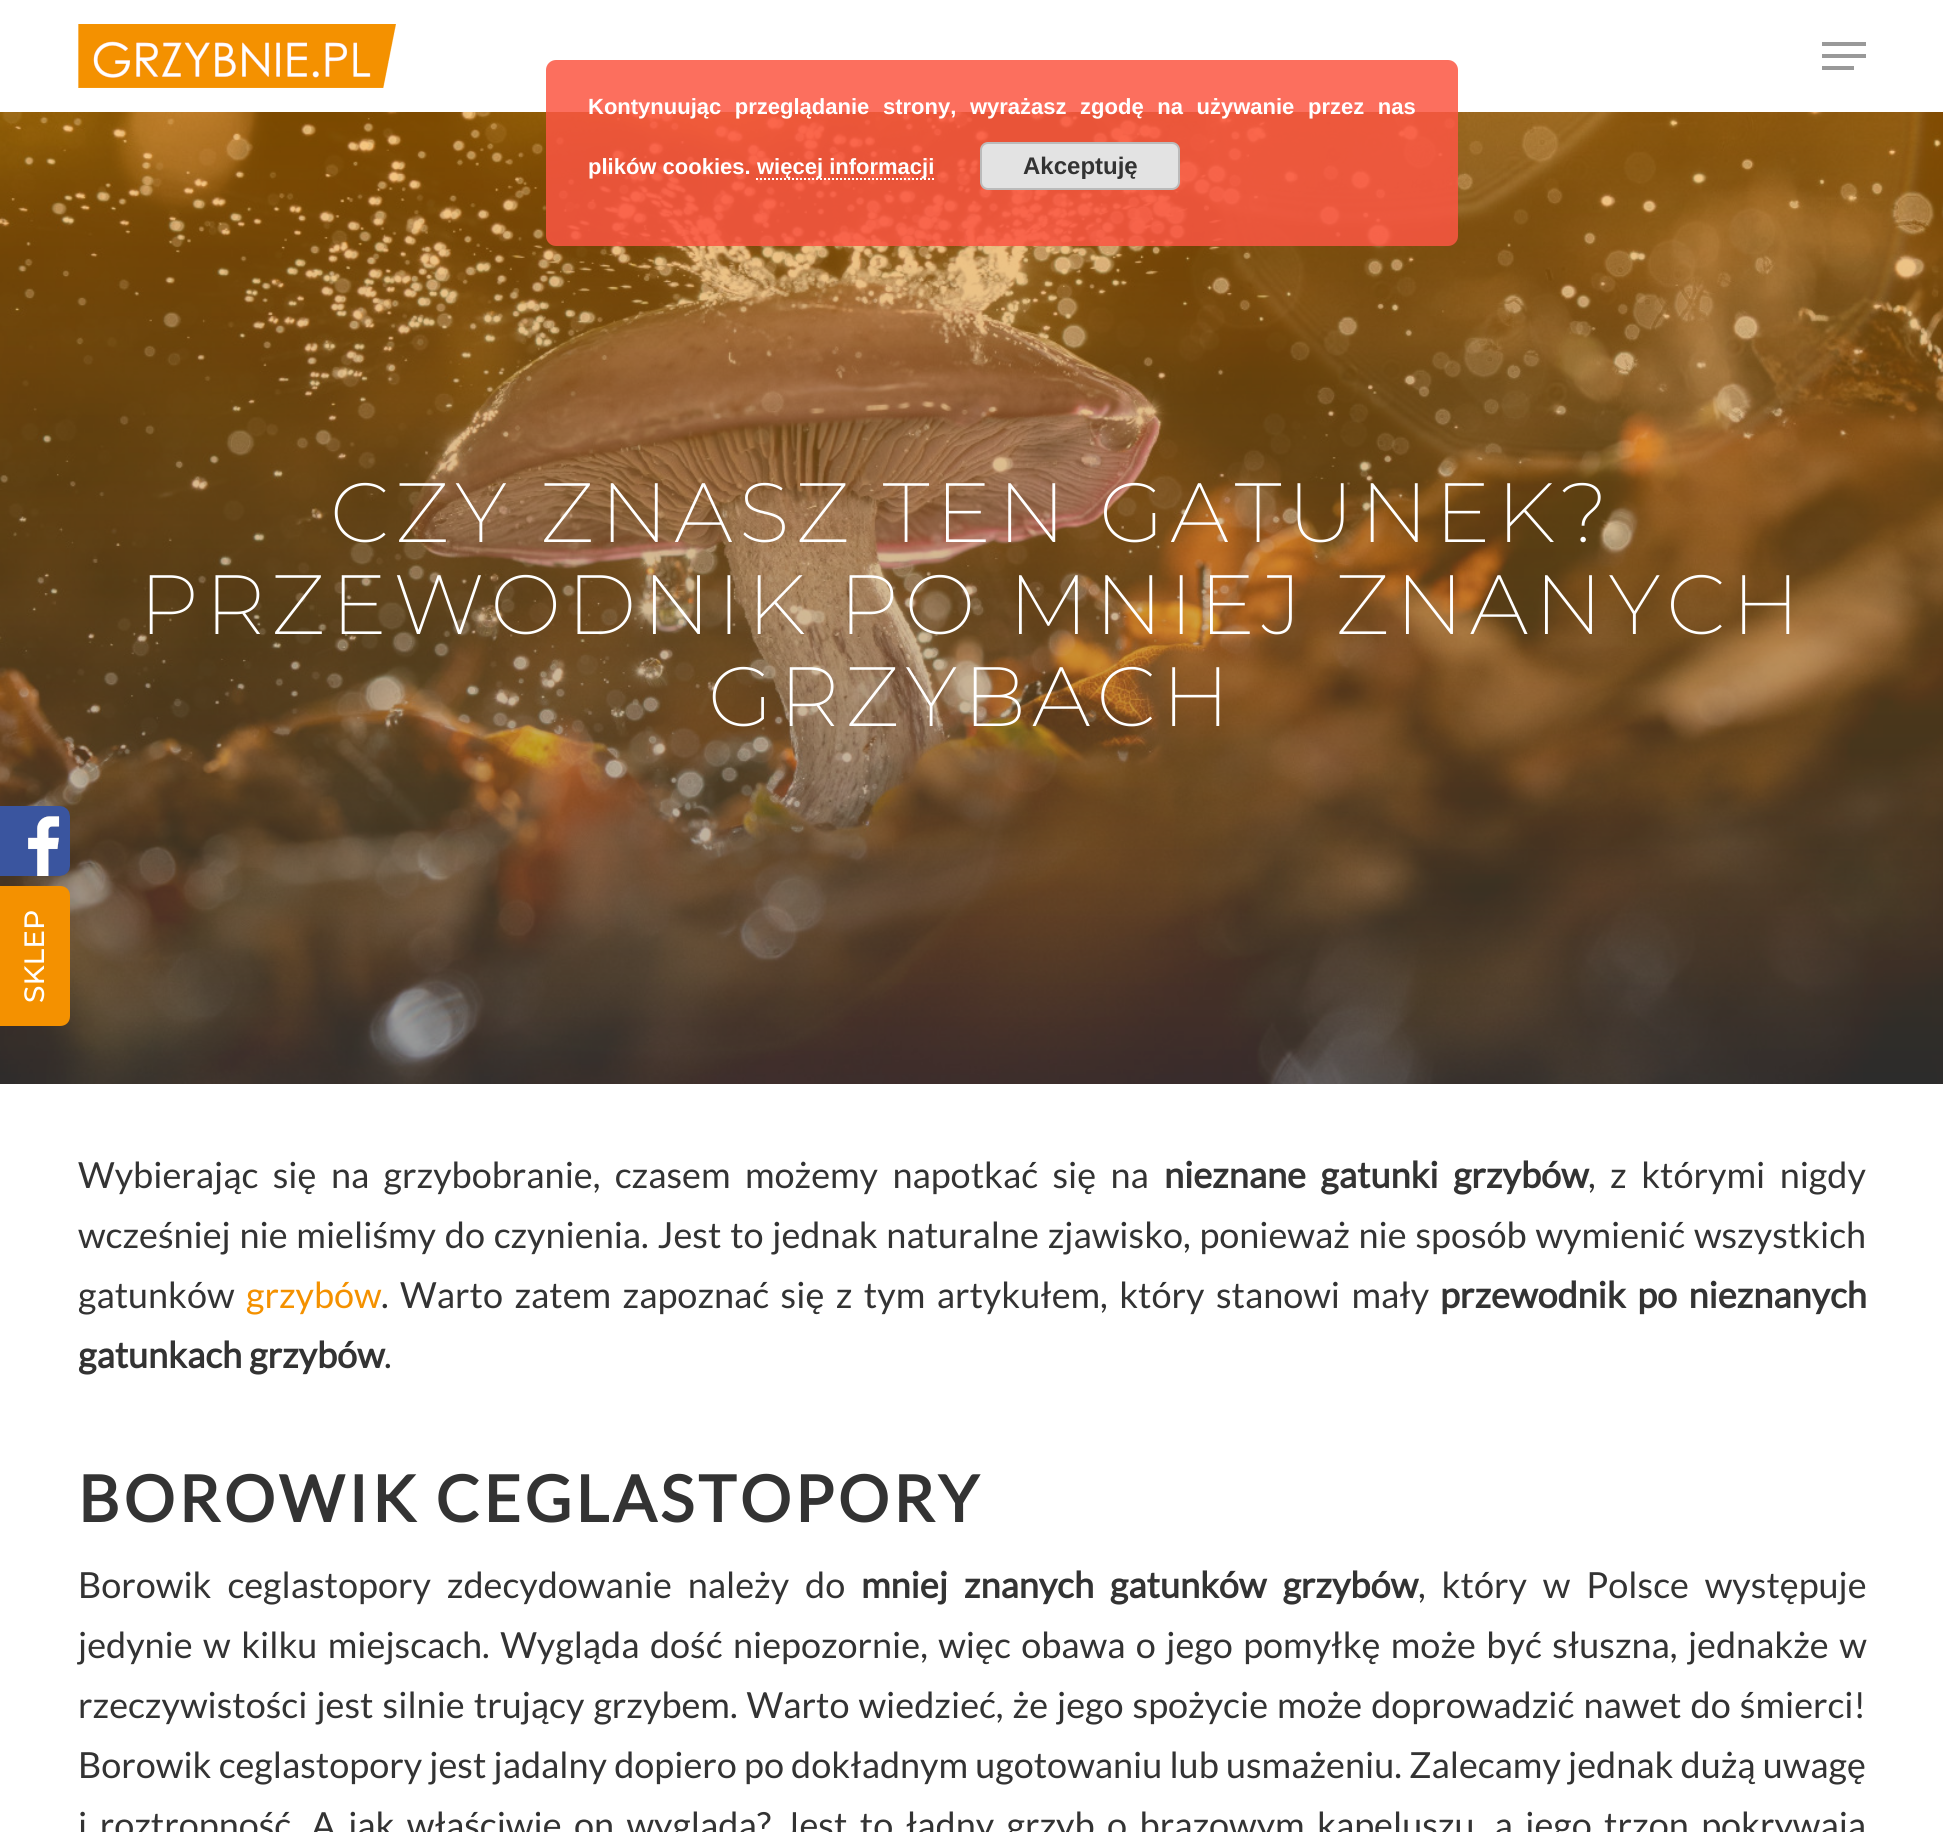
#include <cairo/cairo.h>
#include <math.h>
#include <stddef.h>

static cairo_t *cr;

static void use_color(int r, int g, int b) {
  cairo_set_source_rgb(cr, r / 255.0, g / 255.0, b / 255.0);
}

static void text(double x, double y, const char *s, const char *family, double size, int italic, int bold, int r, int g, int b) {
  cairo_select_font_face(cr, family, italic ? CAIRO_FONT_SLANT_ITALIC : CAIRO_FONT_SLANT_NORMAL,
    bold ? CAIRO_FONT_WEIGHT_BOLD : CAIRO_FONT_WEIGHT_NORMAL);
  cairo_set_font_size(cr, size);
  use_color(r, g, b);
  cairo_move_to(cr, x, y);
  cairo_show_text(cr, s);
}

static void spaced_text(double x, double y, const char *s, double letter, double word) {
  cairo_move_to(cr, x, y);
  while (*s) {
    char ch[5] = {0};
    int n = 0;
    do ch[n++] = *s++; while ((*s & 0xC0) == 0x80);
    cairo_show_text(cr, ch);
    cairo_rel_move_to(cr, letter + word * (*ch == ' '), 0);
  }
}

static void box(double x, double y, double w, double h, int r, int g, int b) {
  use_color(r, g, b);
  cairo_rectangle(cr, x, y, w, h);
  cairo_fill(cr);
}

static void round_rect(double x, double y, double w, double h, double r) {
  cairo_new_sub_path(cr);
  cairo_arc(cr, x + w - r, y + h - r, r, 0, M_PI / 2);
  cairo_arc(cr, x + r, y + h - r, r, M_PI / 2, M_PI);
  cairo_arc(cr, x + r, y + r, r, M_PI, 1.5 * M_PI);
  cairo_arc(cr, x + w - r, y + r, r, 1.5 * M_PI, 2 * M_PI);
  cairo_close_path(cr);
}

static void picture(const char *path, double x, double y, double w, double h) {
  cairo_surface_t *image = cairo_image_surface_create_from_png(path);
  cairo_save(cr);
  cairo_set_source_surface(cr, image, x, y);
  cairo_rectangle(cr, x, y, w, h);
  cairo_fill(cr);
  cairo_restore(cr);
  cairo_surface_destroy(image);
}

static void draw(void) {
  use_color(255, 255, 255);
  cairo_paint(cr);
  picture("img_03.png", 0, 112, 1943, 972);
  cairo_set_source_rgba(cr, 0.984, 0.337, 0.259, 0.85);
  round_rect(546, 60, 912, 186, 10);
  cairo_fill(cr);
  cairo_new_path(cr);
  cairo_move_to(cr, 756, 179);
  cairo_line_to(cr, 934, 179);
  use_color(255, 255, 255);
  cairo_set_dash(cr, (double[]){2, 2}, 2, 0);
  cairo_stroke(cr);
  use_color(227, 227, 227);
  round_rect(981, 143, 198, 46, 7);
  cairo_fill_preserve(cr);
  use_color(187, 187, 187);
  cairo_set_dash(cr, NULL, 0, 0);
  cairo_stroke(cr);
  picture("img_01.png", 0, 806, 70, 70);
  use_color(244, 145, 0);
  cairo_new_path(cr);
  cairo_move_to(cr, 0, 1026);
  cairo_line_to(cr, 0, 886);
  cairo_line_to(cr, 60, 886);
  cairo_curve_to(cr, 66, 886, 70, 890, 70, 896);
  cairo_line_to(cr, 70, 1016);
  cairo_curve_to(cr, 70, 1022, 66, 1026, 60, 1026);
  cairo_close_path(cr);
  cairo_fill(cr);
  picture("img_02.png", 78, 24, 318, 64);
  box(1822, 42, 44, 4, 153, 153, 153);
  box(1822, 66, 32, 4, 153, 153, 153);
  box(1822, 54, 44, 4, 153, 153, 153);
  cairo_select_font_face(cr, "Liberation Sans", CAIRO_FONT_SLANT_NORMAL, CAIRO_FONT_WEIGHT_BOLD);
  cairo_set_font_size(cr, 22);
  use_color(255, 255, 255);
  spaced_text(588, 114, "Kontynuując przeglądanie strony, wyrażasz zgodę na używanie przez nas", 0, 7.5);
  text(588, 174, "plików cookies.", "Liberation Sans", 22, 0, 1, 255, 255, 255);
  text(757, 174, "więcej informacji", "Liberation Sans", 22, 0, 1, 255, 255, 255);
  text(1023, 174, "Akceptuję", "Liberation Sans", 24, 0, 1, 51, 51, 51);
  cairo_save(cr);
  cairo_translate(cr, 44, 1003);
  cairo_rotate(cr, -90 * M_PI / 180);
  text(0, 0, "SKLEP", "Montserrat Medium", 28, 0, 0, 255, 255, 255);
  cairo_restore(cr);
  cairo_select_font_face(cr, "Montserrat ExtraLight", CAIRO_FONT_SLANT_NORMAL, CAIRO_FONT_WEIGHT_NORMAL);
  cairo_set_font_size(cr, 84);
  use_color(255, 255, 255);
  spaced_text(330, 542, "CZY ZNASZ TEN GATUNEK?", 6, 0);
  spaced_text(139, 634, "PRZEWODNIK PO MNIEJ ZNANYCH", 6, 0);
  spaced_text(708, 726, "GRZYBACH", 6, 0);
  cairo_select_font_face(cr, "Lato", CAIRO_FONT_SLANT_NORMAL, CAIRO_FONT_WEIGHT_NORMAL);
  cairo_set_font_size(cr, 36);
  use_color(51, 51, 51);
  spaced_text(78, 1188, "Wybierając się na grzybobranie, czasem możemy napotkać się na", 0, 7.5);
  cairo_select_font_face(cr, "Lato", CAIRO_FONT_SLANT_NORMAL, CAIRO_FONT_WEIGHT_BOLD);
  spaced_text(1164, 1188, "nieznane gatunki grzybów", 0, 7.5);
  cairo_select_font_face(cr, "Lato", CAIRO_FONT_SLANT_NORMAL, CAIRO_FONT_WEIGHT_NORMAL);
  spaced_text(1588, 1188, ", z którymi nigdy", 0, 7.5);
  spaced_text(78, 1248, "wcześniej nie mieliśmy do czynienia. Jest to jednak naturalne zjawisko, ponieważ nie sposób wymienić wszystkich", 0, 1.8);
  text(78, 1308, "gatunków", "Lato", 36, 0, 0, 51, 51, 51);
  text(246, 1308, "grzybów", "Lato", 36, 0, 0, 244, 145, 0);
  use_color(51, 51, 51);
  spaced_text(381, 1308, ". Warto zatem zapoznać się z tym artykułem, który stanowi mały", 0, 4.5);
  cairo_select_font_face(cr, "Lato", CAIRO_FONT_SLANT_NORMAL, CAIRO_FONT_WEIGHT_BOLD);
  spaced_text(1440, 1308, "przewodnik po nieznanych", 0, 4.5);
  text(78, 1368, "gatunkach grzybów", "Lato", 36, 0, 1, 51, 51, 51);
  text(384, 1368, ".", "Lato", 36, 0, 0, 51, 51, 51);
  cairo_select_font_face(cr, "Lato", CAIRO_FONT_SLANT_NORMAL, CAIRO_FONT_WEIGHT_BOLD);
  cairo_set_font_size(cr, 64);
  spaced_text(78, 1522, "BOROWIK CEGLASTOPORY", 4, 0);
  cairo_select_font_face(cr, "Lato", CAIRO_FONT_SLANT_NORMAL, CAIRO_FONT_WEIGHT_NORMAL);
  cairo_set_font_size(cr, 36);
  spaced_text(78, 1598, "Borowik ceglastopory zdecydowanie należy do", 0, 9);
  cairo_select_font_face(cr, "Lato", CAIRO_FONT_SLANT_NORMAL, CAIRO_FONT_WEIGHT_BOLD);
  spaced_text(861, 1598, "mniej znanych gatunków grzybów", 0, 9);
  cairo_select_font_face(cr, "Lato", CAIRO_FONT_SLANT_NORMAL, CAIRO_FONT_WEIGHT_NORMAL);
  spaced_text(1418, 1598, ", który w Polsce występuje", 0, 9);
  spaced_text(78, 1658, "jedynie w kilku miejscach. Wygląda dość niepozornie, więc obawa o jego pomyłkę może być słuszna, jednakże w", 0, 3.5);
  spaced_text(78, 1718, "rzeczywistości jest silnie trujący grzybem. Warto wiedzieć, że jego spożycie może doprowadzić nawet do śmierci!", 0, 2.1);
  spaced_text(78, 1778, "Borowik ceglastopory jest jadalny dopiero po dokładnym ugotowaniu lub usmażeniu. Zalecamy jednak dużą uwagę", 0, 0.25);
  spaced_text(78, 1838, "i roztropność. A jak właściwie on wygląda? Jest to ładny grzyb o brązowym kapeluszu, a jego trzon pokrywają", 0, 5.5);
}

int main(void) {
  cairo_surface_t *surface = cairo_image_surface_create(CAIRO_FORMAT_RGB24, 1943, 1832);
  cr = cairo_create(surface);
  cairo_font_options_t *options = cairo_font_options_create();
  cairo_font_options_set_hint_metrics(options, CAIRO_HINT_METRICS_OFF);
  cairo_font_options_set_hint_style(options, CAIRO_HINT_STYLE_NONE);
  cairo_set_font_options(cr, options);
  cairo_set_miter_limit(cr, 4);
  draw();
  cairo_surface_write_to_png(surface, "out.png");
  cairo_font_options_destroy(options);
  cairo_destroy(cr);
  cairo_surface_destroy(surface);
  return 0;
}
